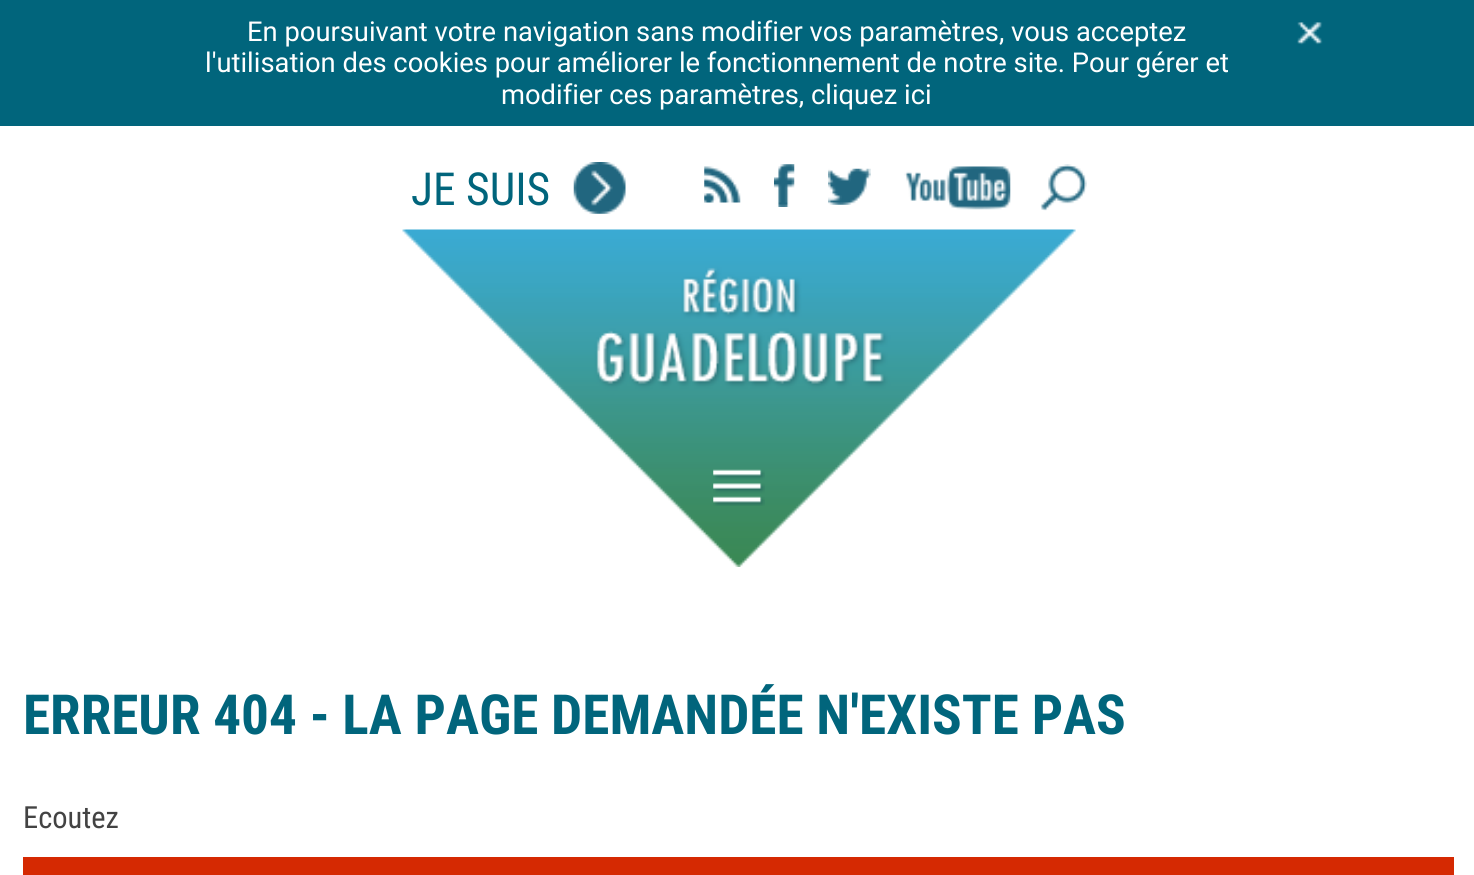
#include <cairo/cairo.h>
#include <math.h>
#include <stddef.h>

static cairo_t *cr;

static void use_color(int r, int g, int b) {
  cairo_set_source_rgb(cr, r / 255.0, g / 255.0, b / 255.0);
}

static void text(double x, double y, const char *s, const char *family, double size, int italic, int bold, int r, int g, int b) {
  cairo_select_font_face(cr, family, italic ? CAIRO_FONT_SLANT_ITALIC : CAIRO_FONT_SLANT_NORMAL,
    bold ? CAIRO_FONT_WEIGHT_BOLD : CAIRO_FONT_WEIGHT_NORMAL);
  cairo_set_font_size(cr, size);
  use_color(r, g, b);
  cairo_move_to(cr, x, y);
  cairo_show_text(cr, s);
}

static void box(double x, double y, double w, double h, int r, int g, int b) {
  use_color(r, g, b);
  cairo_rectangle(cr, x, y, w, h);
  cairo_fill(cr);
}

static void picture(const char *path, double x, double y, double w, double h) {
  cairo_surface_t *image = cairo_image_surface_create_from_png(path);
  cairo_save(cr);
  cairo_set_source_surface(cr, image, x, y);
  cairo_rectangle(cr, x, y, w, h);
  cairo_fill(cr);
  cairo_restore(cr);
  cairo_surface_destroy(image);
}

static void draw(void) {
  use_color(255, 255, 255);
  cairo_paint(cr);
  box(0, 0, 1474, 126, 1, 101, 124);
  picture("img_01.png", 1297, 22, 26, 23);
  picture("img_02.png", 573, 162, 53, 52);
  picture("img_03.png", 704, 166, 37, 37);
  picture("img_04.png", 774, 164, 21, 43);
  picture("img_05.png", 828, 168, 43, 37);
  picture("img_06.png", 904, 166, 107, 44);
  picture("img_07.png", 1040, 164, 47, 47);
  picture("img_08.png", 402, 229, 674, 338);
  picture("img_09.png", 713, 469, 52, 37);
  box(23, 857, 1431, 18, 213, 41, 2);
  text(247, 41, "En poursuivant votre navigation sans modifier vos paramètres, vous acceptez", "Roboto", 27.35, 0, 0, 255, 255, 255);
  text(205, 72, "l'utilisation des cookies pour améliorer le fonctionnement de notre site. Pour gérer et", "Roboto", 27.35, 0, 0, 255, 255, 255);
  text(501, 104, "modifier ces paramètres, cliquez ici", "Roboto", 27.35, 0, 0, 255, 255, 255);
  text(411, 205, "JE SUIS", "Roboto Condensed", 45.5, 0, 0, 1, 101, 124);
  text(23, 734, "ERREUR 404 - LA PAGE DEMANDÉE N'EXISTE PAS", "Roboto Condensed", 55.25, 0, 1, 1, 101, 124);
  text(23, 828, "Ecoutez", "Roboto Condensed", 30.5, 0, 0, 67, 67, 67);
}

int main(void) {
  cairo_surface_t *surface = cairo_image_surface_create(CAIRO_FORMAT_RGB24, 1474, 875);
  cr = cairo_create(surface);
  cairo_font_options_t *options = cairo_font_options_create();
  cairo_font_options_set_hint_metrics(options, CAIRO_HINT_METRICS_OFF);
  cairo_font_options_set_hint_style(options, CAIRO_HINT_STYLE_NONE);
  cairo_set_font_options(cr, options);
  cairo_set_miter_limit(cr, 4);
  draw();
  cairo_surface_write_to_png(surface, "out.png");
  cairo_font_options_destroy(options);
  cairo_destroy(cr);
  cairo_surface_destroy(surface);
  return 0;
}
